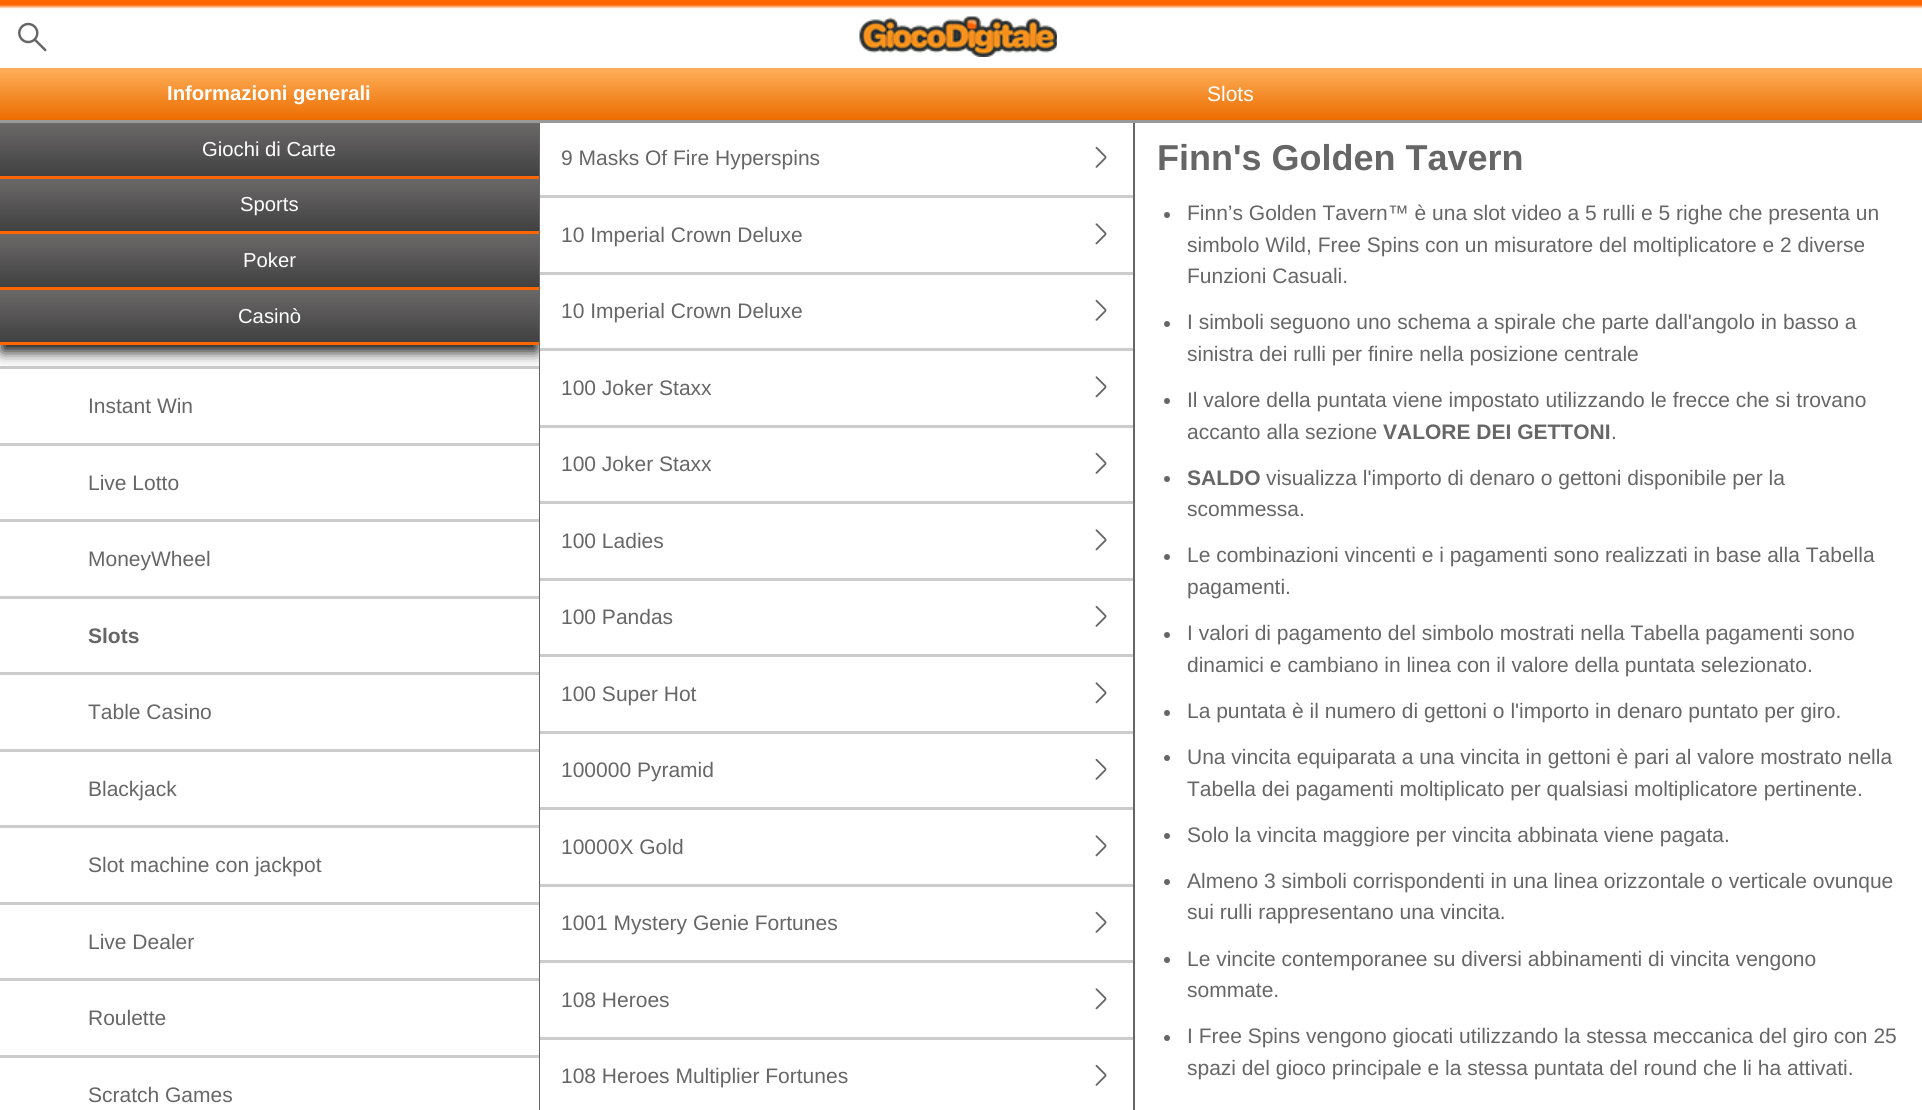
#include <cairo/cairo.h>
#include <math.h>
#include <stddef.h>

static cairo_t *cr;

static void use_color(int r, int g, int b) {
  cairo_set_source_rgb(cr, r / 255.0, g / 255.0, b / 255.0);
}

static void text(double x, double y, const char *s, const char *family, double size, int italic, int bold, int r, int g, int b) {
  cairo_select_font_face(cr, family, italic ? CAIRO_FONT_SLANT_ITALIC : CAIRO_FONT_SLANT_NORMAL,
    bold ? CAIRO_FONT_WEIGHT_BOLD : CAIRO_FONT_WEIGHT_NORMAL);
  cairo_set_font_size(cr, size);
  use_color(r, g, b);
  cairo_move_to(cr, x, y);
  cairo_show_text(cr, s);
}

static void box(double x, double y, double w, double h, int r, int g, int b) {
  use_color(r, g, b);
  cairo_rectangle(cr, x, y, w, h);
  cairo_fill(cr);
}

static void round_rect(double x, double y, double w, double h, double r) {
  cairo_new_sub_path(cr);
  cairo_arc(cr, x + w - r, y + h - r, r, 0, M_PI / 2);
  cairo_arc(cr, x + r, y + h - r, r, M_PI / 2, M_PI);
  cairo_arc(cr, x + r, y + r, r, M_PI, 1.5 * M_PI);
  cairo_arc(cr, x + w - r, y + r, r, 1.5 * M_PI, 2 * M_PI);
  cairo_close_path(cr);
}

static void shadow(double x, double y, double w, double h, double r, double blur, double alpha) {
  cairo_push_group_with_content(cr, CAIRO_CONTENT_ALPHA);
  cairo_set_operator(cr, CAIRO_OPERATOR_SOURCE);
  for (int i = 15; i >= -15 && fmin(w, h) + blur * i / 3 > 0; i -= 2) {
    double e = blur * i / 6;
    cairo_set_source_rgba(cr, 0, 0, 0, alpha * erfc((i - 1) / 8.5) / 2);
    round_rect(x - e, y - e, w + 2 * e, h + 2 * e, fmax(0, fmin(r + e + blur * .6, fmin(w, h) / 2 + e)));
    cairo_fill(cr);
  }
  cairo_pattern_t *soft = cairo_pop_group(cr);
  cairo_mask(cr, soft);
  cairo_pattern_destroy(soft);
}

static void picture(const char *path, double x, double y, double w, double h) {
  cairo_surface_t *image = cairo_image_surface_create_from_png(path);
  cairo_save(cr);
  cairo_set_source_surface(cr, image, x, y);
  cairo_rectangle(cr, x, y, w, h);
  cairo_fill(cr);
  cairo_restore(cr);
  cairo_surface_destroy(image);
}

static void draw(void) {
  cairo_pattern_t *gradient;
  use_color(102, 102, 102);
  cairo_paint(cr);
  box(0, 345, 539, 21, 255, 255, 255);
  box(0, 366, 539, 3, 204, 204, 204);
  box(0, 369, 539, 74, 255, 255, 255);
  box(540, 123, 1382, 987, 255, 255, 255);
  box(540, 195, 593, 3, 204, 204, 204);
  box(540, 272, 593, 3, 204, 204, 204);
  box(540, 348, 593, 3, 204, 204, 204);
  cairo_save(cr);
  cairo_rectangle(cr, 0, 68, 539, 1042);
  cairo_clip(cr);
  use_color(0, 0, 0);
  shadow(2, 77, 535, 274, 0, 7.5, 1);
  cairo_restore(cr);
  gradient = cairo_pattern_create_linear(962, 0, 962, 68);
  cairo_pattern_add_color_stop_rgba(gradient, 0, 1, 0.4, 0, 1);
  cairo_pattern_add_color_stop_rgba(gradient, 0.07, 1, 0.4, 0, 1);
  cairo_pattern_add_color_stop_rgba(gradient, 0.13, 1, 1, 1, 1);
  cairo_set_source(cr, gradient);
  cairo_pattern_destroy(gradient);
  cairo_rectangle(cr, 0, 0, 1922, 68);
  cairo_fill(cr);
  picture("img_01.png", 18, 22, 29, 30);
  picture("img_02.png", 859, 16, 198, 41);
  gradient = cairo_pattern_create_linear(269, 67, 269, 120);
  cairo_pattern_add_color_stop_rgba(gradient, 0, 1, 0.694, 0.361, 1);
  cairo_pattern_add_color_stop_rgba(gradient, 1, 0.925, 0.427, 0.004, 1);
  cairo_set_source(cr, gradient);
  cairo_pattern_destroy(gradient);
  cairo_rectangle(cr, 0, 68, 539, 52);
  cairo_fill(cr);
  box(1133, 122, 2, 988, 102, 102, 102);
  box(0, 120, 1922, 3, 153, 153, 153);
  gradient = cairo_pattern_create_linear(269, 123, 269, 176);
  cairo_pattern_add_color_stop_rgba(gradient, 0, 0.42, 0.408, 0.408, 1);
  cairo_pattern_add_color_stop_rgba(gradient, 1, 0.255, 0.255, 0.255, 1);
  cairo_set_source(cr, gradient);
  cairo_pattern_destroy(gradient);
  cairo_rectangle(cr, 0, 123, 539, 53);
  cairo_fill(cr);
  box(0, 176, 539, 3, 255, 102, 0);
  gradient = cairo_pattern_create_linear(269, 178, 269, 231);
  cairo_pattern_add_color_stop_rgba(gradient, 0, 0.42, 0.408, 0.408, 1);
  cairo_pattern_add_color_stop_rgba(gradient, 1, 0.255, 0.255, 0.255, 1);
  cairo_set_source(cr, gradient);
  cairo_pattern_destroy(gradient);
  cairo_rectangle(cr, 0, 179, 539, 52);
  cairo_fill(cr);
  box(0, 231, 539, 3, 255, 102, 0);
  gradient = cairo_pattern_create_linear(269, 234, 269, 287);
  cairo_pattern_add_color_stop_rgba(gradient, 0, 0.42, 0.408, 0.408, 1);
  cairo_pattern_add_color_stop_rgba(gradient, 1, 0.255, 0.255, 0.255, 1);
  cairo_set_source(cr, gradient);
  cairo_pattern_destroy(gradient);
  cairo_rectangle(cr, 0, 234, 539, 53);
  cairo_fill(cr);
  box(0, 287, 539, 3, 255, 102, 0);
  gradient = cairo_pattern_create_linear(269, 289, 269, 342);
  cairo_pattern_add_color_stop_rgba(gradient, 0, 0.42, 0.408, 0.408, 1);
  cairo_pattern_add_color_stop_rgba(gradient, 1, 0.255, 0.255, 0.255, 1);
  cairo_set_source(cr, gradient);
  cairo_pattern_destroy(gradient);
  cairo_rectangle(cr, 0, 290, 539, 52);
  cairo_fill(cr);
  box(0, 342, 539, 3, 255, 102, 0);
  box(0, 443, 539, 3, 204, 204, 204);
  box(0, 519, 539, 3, 204, 204, 204);
  box(0, 446, 539, 73, 255, 255, 255);
  box(0, 596, 539, 3, 204, 204, 204);
  box(0, 522, 539, 74, 255, 255, 255);
  box(0, 672, 539, 3, 204, 204, 204);
  box(0, 599, 539, 73, 255, 255, 255);
  box(0, 749, 539, 3, 204, 204, 204);
  box(0, 675, 539, 74, 255, 255, 255);
  box(0, 825, 539, 3, 204, 204, 204);
  box(0, 752, 539, 73, 255, 255, 255);
  box(0, 902, 539, 3, 204, 204, 204);
  box(0, 828, 539, 74, 255, 255, 255);
  box(0, 978, 539, 3, 204, 204, 204);
  box(0, 905, 539, 73, 255, 255, 255);
  box(0, 1055, 539, 3, 204, 204, 204);
  box(0, 981, 539, 74, 255, 255, 255);
  box(0, 1058, 539, 52, 255, 255, 255);
  gradient = cairo_pattern_create_linear(1231, 67, 1231, 120);
  cairo_pattern_add_color_stop_rgba(gradient, 0, 1, 0.694, 0.361, 1);
  cairo_pattern_add_color_stop_rgba(gradient, 1, 0.925, 0.427, 0.004, 1);
  cairo_set_source(cr, gradient);
  cairo_pattern_destroy(gradient);
  cairo_rectangle(cr, 539, 68, 1383, 52);
  cairo_fill(cr);
  picture("img_03.png", 1095, 146, 12, 22);
  picture("img_04.png", 1095, 223, 12, 22);
  picture("img_03.png", 1095, 299, 12, 22);
  box(540, 425, 593, 3, 204, 204, 204);
  picture("img_04.png", 1095, 376, 12, 22);
  box(540, 501, 593, 3, 204, 204, 204);
  picture("img_03.png", 1095, 452, 12, 22);
  box(540, 578, 593, 3, 204, 204, 204);
  picture("img_04.png", 1095, 529, 12, 22);
  box(540, 654, 593, 3, 204, 204, 204);
  picture("img_03.png", 1095, 605, 12, 22);
  box(540, 731, 593, 3, 204, 204, 204);
  picture("img_04.png", 1095, 682, 12, 22);
  box(540, 807, 593, 3, 204, 204, 204);
  picture("img_03.png", 1095, 758, 12, 22);
  box(540, 884, 593, 3, 204, 204, 204);
  picture("img_04.png", 1095, 835, 12, 22);
  box(540, 960, 593, 3, 204, 204, 204);
  picture("img_03.png", 1095, 911, 12, 22);
  box(540, 1037, 593, 3, 204, 204, 204);
  picture("img_04.png", 1095, 988, 12, 22);
  picture("img_03.png", 1095, 1064, 12, 22);
  use_color(102, 102, 102);
  cairo_arc(cr, 1167, 215, 3, 0, 2 * M_PI);
  cairo_fill(cr);
  cairo_arc(cr, 1167, 324, 3, 0, 2 * M_PI);
  cairo_fill(cr);
  cairo_arc(cr, 1167, 401, 3, 0, 2 * M_PI);
  cairo_fill(cr);
  cairo_arc(cr, 1167, 479, 3, 0, 2 * M_PI);
  cairo_fill(cr);
  cairo_arc(cr, 1167, 557, 3, 0, 2 * M_PI);
  cairo_fill(cr);
  cairo_arc(cr, 1167, 635, 3, 0, 2 * M_PI);
  cairo_fill(cr);
  cairo_arc(cr, 1167, 713, 3, 0, 2 * M_PI);
  cairo_fill(cr);
  cairo_arc(cr, 1167, 758, 3, 0, 2 * M_PI);
  cairo_fill(cr);
  cairo_arc(cr, 1167, 836, 3, 0, 2 * M_PI);
  cairo_fill(cr);
  cairo_arc(cr, 1167, 882, 3, 0, 2 * M_PI);
  cairo_fill(cr);
  cairo_arc(cr, 1167, 960, 3, 0, 2 * M_PI);
  cairo_fill(cr);
  cairo_arc(cr, 1167, 1038, 3, 0, 2 * M_PI);
  cairo_fill(cr);
  text(167, 100, "Informazioni generali", "Liberation Sans", 20.25, 0, 1, 255, 255, 255);
  text(202, 156, "Giochi di Carte", "Liberation Sans", 20.25, 0, 0, 255, 255, 255);
  text(240, 211, "Sports", "Liberation Sans", 20.25, 0, 0, 255, 255, 255);
  text(243, 267, "Poker", "Liberation Sans", 20.25, 0, 0, 255, 255, 255);
  text(238, 323, "Casinò", "Liberation Sans", 20.25, 0, 0, 255, 255, 255);
  text(88, 413, "Instant Win", "Liberation Sans", 21, 0, 0, 102, 102, 102);
  text(88, 490, "Live Lotto", "Liberation Sans", 21, 0, 0, 102, 102, 102);
  text(88, 566, "MoneyWheel", "Liberation Sans", 21, 0, 0, 102, 102, 102);
  text(88, 643, "Slots", "Liberation Sans", 21, 0, 1, 102, 102, 102);
  text(88, 719, "Table Casino", "Liberation Sans", 21, 0, 0, 102, 102, 102);
  text(88, 796, "Blackjack", "Liberation Sans", 21, 0, 0, 102, 102, 102);
  text(88, 872, "Slot machine con jackpot", "Liberation Sans", 21, 0, 0, 102, 102, 102);
  text(88, 949, "Live Dealer", "Liberation Sans", 21, 0, 0, 102, 102, 102);
  text(88, 1025, "Roulette", "Liberation Sans", 21, 0, 0, 102, 102, 102);
  text(88, 1102, "Scratch Games", "Liberation Sans", 21, 0, 0, 102, 102, 102);
  text(1207, 101, "Slots", "Liberation Sans", 21, 0, 0, 255, 255, 255);
  text(561, 165, "9 Masks Of Fire Hyperspins", "Liberation Sans", 21, 0, 0, 102, 102, 102);
  text(561, 242, "10 Imperial Crown Deluxe", "Liberation Sans", 21, 0, 0, 102, 102, 102);
  text(561, 318, "10 Imperial Crown Deluxe", "Liberation Sans", 21, 0, 0, 102, 102, 102);
  text(561, 395, "100 Joker Staxx", "Liberation Sans", 21, 0, 0, 102, 102, 102);
  text(561, 471, "100 Joker Staxx", "Liberation Sans", 21, 0, 0, 102, 102, 102);
  text(561, 548, "100 Ladies", "Liberation Sans", 21, 0, 0, 102, 102, 102);
  text(561, 624, "100 Pandas", "Liberation Sans", 21, 0, 0, 102, 102, 102);
  text(561, 701, "100 Super Hot", "Liberation Sans", 21, 0, 0, 102, 102, 102);
  text(561, 777, "100000 Pyramid", "Liberation Sans", 21, 0, 0, 102, 102, 102);
  text(561, 854, "10000X Gold", "Liberation Sans", 21, 0, 0, 102, 102, 102);
  text(561, 930, "1001 Mystery Genie Fortunes", "Liberation Sans", 21, 0, 0, 102, 102, 102);
  text(561, 1007, "108 Heroes", "Liberation Sans", 21, 0, 0, 102, 102, 102);
  text(561, 1083, "108 Heroes Multiplier Fortunes", "Liberation Sans", 21, 0, 0, 102, 102, 102);
  text(1157, 170, "Finn's Golden Tavern", "Liberation Sans", 36, 0, 1, 102, 102, 102);
  text(1187, 220, "Finn’s Golden Tavern™ è una slot video a 5 rulli e 5 righe che presenta un", "Liberation Sans", 21, 0, 0, 102, 102, 102);
  text(1187, 252, "simbolo Wild, Free Spins con un misuratore del moltiplicatore e 2 diverse", "Liberation Sans", 21, 0, 0, 102, 102, 102);
  text(1187, 283, "Funzioni Casuali.", "Liberation Sans", 21, 0, 0, 102, 102, 102);
  text(1187, 329, "I simboli seguono uno schema a spirale che parte dall'angolo in basso a", "Liberation Sans", 21, 0, 0, 102, 102, 102);
  text(1187, 361, "sinistra dei rulli per finire nella posizione centrale", "Liberation Sans", 21, 0, 0, 102, 102, 102);
  text(1187, 407, "Il valore della puntata viene impostato utilizzando le frecce che si trovano", "Liberation Sans", 21, 0, 0, 102, 102, 102);
  text(1187, 439, "accanto alla sezione", "Liberation Sans", 21, 0, 0, 102, 102, 102);
  text(1383, 439, "VALORE DEI GETTONI", "Liberation Sans", 21, 0, 1, 102, 102, 102);
  text(1611, 439, ".", "Liberation Sans", 21, 0, 0, 102, 102, 102);
  text(1187, 485, "SALDO", "Liberation Sans", 21, 0, 1, 102, 102, 102);
  text(1266, 485, "visualizza l'importo di denaro o gettoni disponibile per la", "Liberation Sans", 21, 0, 0, 102, 102, 102);
  text(1187, 516, "scommessa.", "Liberation Sans", 21, 0, 0, 102, 102, 102);
  text(1187, 562, "Le combinazioni vincenti e i pagamenti sono realizzati in base alla Tabella", "Liberation Sans", 21, 0, 0, 102, 102, 102);
  text(1187, 594, "pagamenti.", "Liberation Sans", 21, 0, 0, 102, 102, 102);
  text(1187, 640, "I valori di pagamento del simbolo mostrati nella Tabella pagamenti sono", "Liberation Sans", 21, 0, 0, 102, 102, 102);
  text(1187, 672, "dinamici e cambiano in linea con il valore della puntata selezionato.", "Liberation Sans", 21, 0, 0, 102, 102, 102);
  text(1187, 718, "La puntata è il numero di gettoni o l'importo in denaro puntato per giro.", "Liberation Sans", 21, 0, 0, 102, 102, 102);
  text(1187, 764, "Una vincita equiparata a una vincita in gettoni è pari al valore mostrato nella", "Liberation Sans", 21, 0, 0, 102, 102, 102);
  text(1187, 796, "Tabella dei pagamenti moltiplicato per qualsiasi moltiplicatore pertinente.", "Liberation Sans", 21, 0, 0, 102, 102, 102);
  text(1187, 842, "Solo la vincita maggiore per vincita abbinata viene pagata.", "Liberation Sans", 21, 0, 0, 102, 102, 102);
  text(1187, 888, "Almeno 3 simboli corrispondenti in una linea orizzontale o verticale ovunque", "Liberation Sans", 21, 0, 0, 102, 102, 102);
  text(1187, 919, "sui rulli rappresentano una vincita.", "Liberation Sans", 21, 0, 0, 102, 102, 102);
  text(1187, 966, "Le vincite contemporanee su diversi abbinamenti di vincita vengono", "Liberation Sans", 21, 0, 0, 102, 102, 102);
  text(1187, 997, "sommate.", "Liberation Sans", 21, 0, 0, 102, 102, 102);
  text(1187, 1043, "I Free Spins vengono giocati utilizzando la stessa meccanica del giro con 25", "Liberation Sans", 21, 0, 0, 102, 102, 102);
  text(1187, 1075, "spazi del gioco principale e la stessa puntata del round che li ha attivati.", "Liberation Sans", 21, 0, 0, 102, 102, 102);
}

int main(void) {
  cairo_surface_t *surface = cairo_image_surface_create(CAIRO_FORMAT_RGB24, 1922, 1110);
  cr = cairo_create(surface);
  cairo_font_options_t *options = cairo_font_options_create();
  cairo_font_options_set_hint_metrics(options, CAIRO_HINT_METRICS_OFF);
  cairo_font_options_set_hint_style(options, CAIRO_HINT_STYLE_NONE);
  cairo_set_font_options(cr, options);
  cairo_set_miter_limit(cr, 4);
  draw();
  cairo_surface_write_to_png(surface, "out.png");
  cairo_font_options_destroy(options);
  cairo_destroy(cr);
  cairo_surface_destroy(surface);
  return 0;
}
